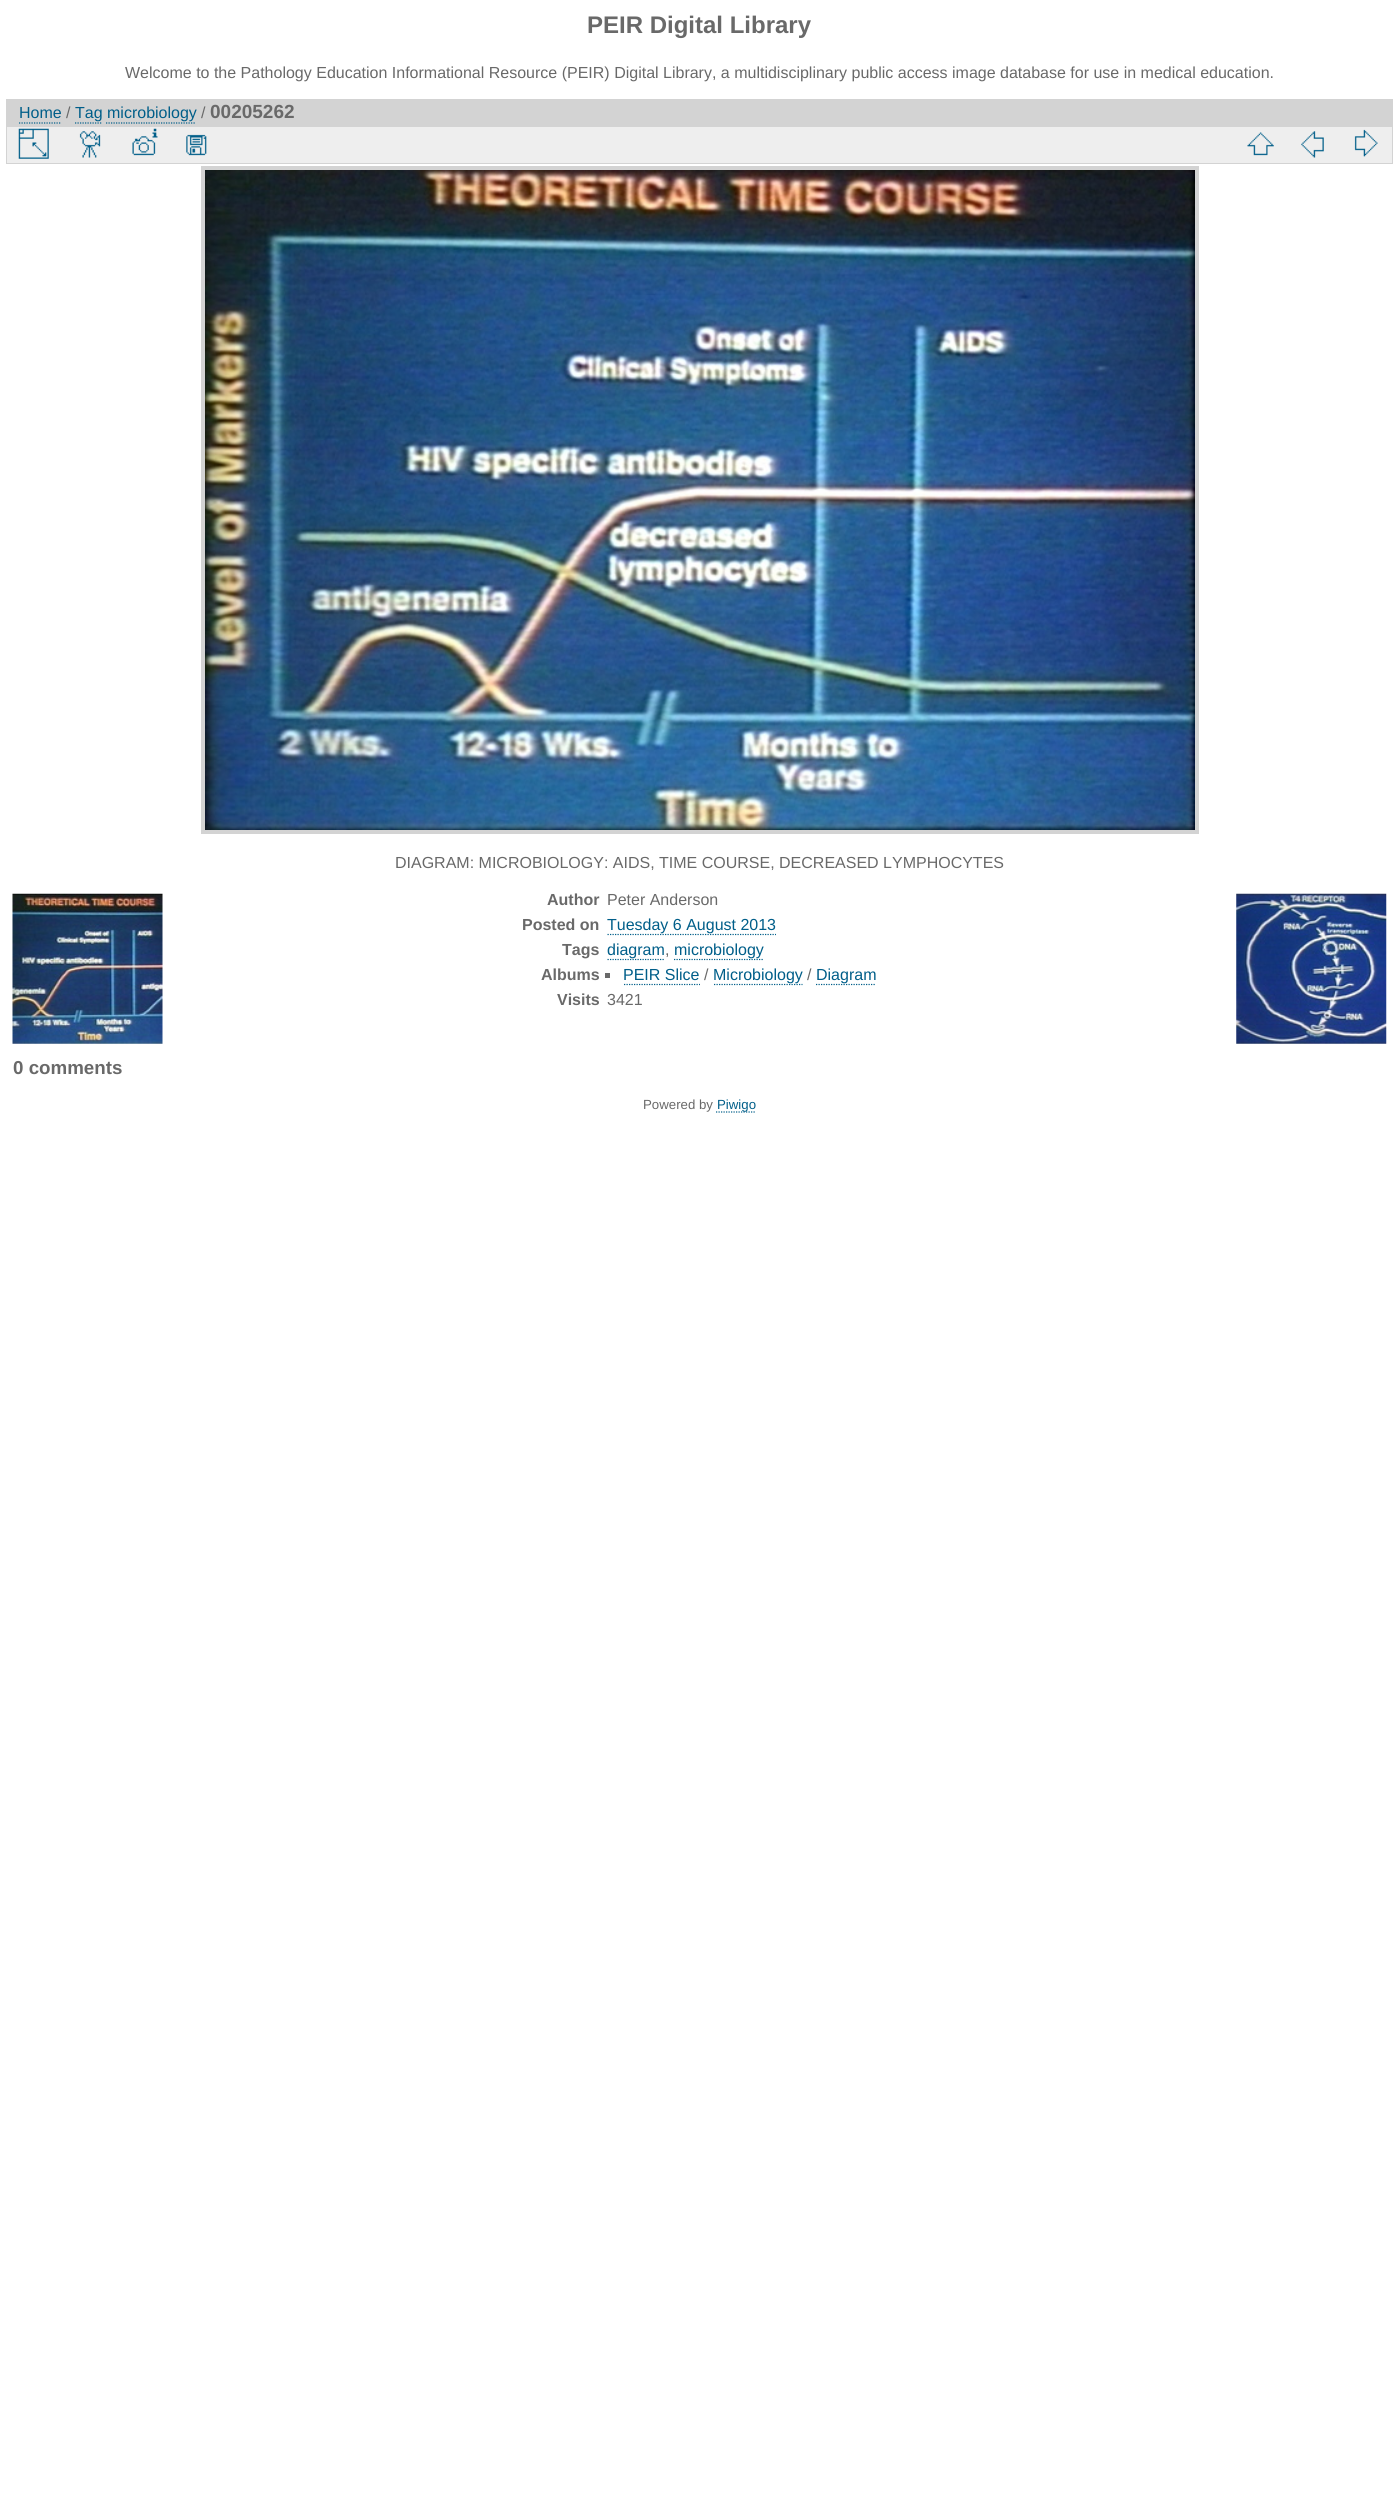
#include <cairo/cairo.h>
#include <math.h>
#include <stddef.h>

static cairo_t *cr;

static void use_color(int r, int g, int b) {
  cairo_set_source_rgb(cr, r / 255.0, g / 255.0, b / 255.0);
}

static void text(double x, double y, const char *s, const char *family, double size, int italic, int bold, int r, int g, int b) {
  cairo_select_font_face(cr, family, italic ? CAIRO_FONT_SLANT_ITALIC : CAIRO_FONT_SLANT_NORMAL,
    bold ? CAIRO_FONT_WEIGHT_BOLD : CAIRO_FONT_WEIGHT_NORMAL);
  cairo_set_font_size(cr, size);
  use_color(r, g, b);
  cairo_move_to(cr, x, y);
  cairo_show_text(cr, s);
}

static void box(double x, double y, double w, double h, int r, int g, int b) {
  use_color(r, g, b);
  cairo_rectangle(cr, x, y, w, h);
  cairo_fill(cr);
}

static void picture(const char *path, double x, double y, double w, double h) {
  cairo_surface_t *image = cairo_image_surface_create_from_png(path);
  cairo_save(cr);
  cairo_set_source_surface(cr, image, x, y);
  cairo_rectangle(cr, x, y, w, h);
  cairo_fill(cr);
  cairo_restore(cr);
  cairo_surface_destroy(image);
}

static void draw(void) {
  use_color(255, 255, 255);
  cairo_paint(cr);
  box(6, 99, 1387, 27, 211, 211, 211);
  cairo_new_path(cr);
  cairo_move_to(cr, 19, 123);
  cairo_line_to(cr, 61, 123);
  use_color(0, 94, 137);
  cairo_set_line_width(cr, 1.2);
  cairo_set_dash(cr, (double[]){1.25, 1.25}, 2, 0);
  cairo_stroke(cr);
  cairo_new_path(cr);
  cairo_move_to(cr, 75, 123);
  cairo_line_to(cr, 102.5, 123);
  cairo_stroke(cr);
  cairo_new_path(cr);
  cairo_move_to(cr, 106, 123);
  cairo_line_to(cr, 196, 123);
  cairo_stroke(cr);
  use_color(238, 238, 238);
  cairo_rectangle(cr, 6.5, 126.5, 1386, 37);
  cairo_fill_preserve(cr);
  use_color(211, 211, 211);
  cairo_set_line_width(cr, 1);
  cairo_set_dash(cr, NULL, 0, 0);
  cairo_stroke(cr);
  picture("img_01.png", 18, 128, 31, 31);
  picture("img_02.png", 79, 131, 22, 27);
  picture("img_03.png", 132, 128, 26, 28);
  picture("img_04.png", 186, 134, 21, 22);
  picture("img_05.png", 1247, 132, 27, 24);
  picture("img_06.png", 1301, 131, 23, 27);
  picture("img_07.png", 1354, 129, 24, 28);
  cairo_rectangle(cr, 203, 168, 994, 664);
  cairo_set_line_width(cr, 4);
  cairo_stroke(cr);
  picture("img_08.png", 205, 170, 990, 660);
  picture("img_09.png", 12, 893, 151, 151);
  picture("img_10.png", 1236, 893, 151, 151);
  cairo_new_path(cr);
  cairo_move_to(cr, 607.5, 934.5);
  cairo_line_to(cr, 776, 934.5);
  use_color(0, 94, 137);
  cairo_set_line_width(cr, 1.2);
  cairo_set_dash(cr, (double[]){1.25, 1.25}, 2, 0);
  cairo_stroke(cr);
  cairo_new_path(cr);
  cairo_move_to(cr, 607.5, 959.5);
  cairo_line_to(cr, 665, 959.5);
  cairo_stroke(cr);
  cairo_new_path(cr);
  cairo_move_to(cr, 674, 959.5);
  cairo_line_to(cr, 764, 959.5);
  cairo_stroke(cr);
  box(605, 973, 5, 5, 105, 105, 105);
  cairo_new_path(cr);
  cairo_move_to(cr, 624, 984.5);
  cairo_line_to(cr, 700, 984.5);
  use_color(0, 94, 137);
  cairo_stroke(cr);
  cairo_new_path(cr);
  cairo_move_to(cr, 714, 984.5);
  cairo_line_to(cr, 802.5, 984.5);
  cairo_stroke(cr);
  cairo_new_path(cr);
  cairo_move_to(cr, 816, 984.5);
  cairo_line_to(cr, 876, 984.5);
  cairo_stroke(cr);
  cairo_new_path(cr);
  cairo_move_to(cr, 716, 1112);
  cairo_line_to(cr, 756, 1112);
  cairo_stroke(cr);
  text(587, 33, "PEIR Digital Library", "Liberation Sans", 24, 0, 1, 105, 105, 105);
  text(125, 78, "Welcome to the Pathology Education Informational Resource (PEIR) Digital Library, a multidisciplinary public access image database for use in medical education.", "Liberation Sans", 16, 0, 0, 105, 105, 105);
  text(19, 118, "Home", "Liberation Sans", 16, 0, 0, 0, 94, 137);
  text(66, 118, "/", "Liberation Sans", 16, 0, 0, 105, 105, 105);
  text(75, 118, "Tag microbiology", "Liberation Sans", 16, 0, 0, 0, 94, 137);
  text(201, 118, "/", "Liberation Sans", 16, 0, 0, 105, 105, 105);
  text(210, 118, "00205262", "Liberation Sans", 19, 0, 1, 105, 105, 105);
  text(395, 868, "DIAGRAM: MICROBIOLOGY: AIDS, TIME COURSE, DECREASED LYMPHOCYTES", "Liberation Sans", 16, 0, 0, 105, 105, 105);
  text(547, 905, "Author", "Liberation Sans", 16, 0, 1, 105, 105, 105);
  text(607, 905, "Peter Anderson", "Liberation Sans", 16, 0, 0, 105, 105, 105);
  text(522, 930, "Posted on", "Liberation Sans", 16, 0, 1, 105, 105, 105);
  text(607, 930, "Tuesday 6 August 2013", "Liberation Sans", 16, 0, 0, 0, 94, 137);
  text(562, 955, "Tags", "Liberation Sans", 16, 0, 1, 105, 105, 105);
  text(607, 955, "diagram", "Liberation Sans", 16, 0, 0, 0, 94, 137);
  text(665, 955, ",", "Liberation Sans", 16, 0, 0, 105, 105, 105);
  text(674, 955, "microbiology", "Liberation Sans", 16, 0, 0, 0, 94, 137);
  text(541, 980, "Albums", "Liberation Sans", 16, 0, 1, 105, 105, 105);
  text(623, 980, "PEIR Slice", "Liberation Sans", 16, 0, 0, 0, 94, 137);
  text(704, 980, "/", "Liberation Sans", 16, 0, 0, 105, 105, 105);
  text(713, 980, "Microbiology", "Liberation Sans", 16, 0, 0, 0, 94, 137);
  text(807, 980, "/", "Liberation Sans", 16, 0, 0, 105, 105, 105);
  text(816, 980, "Diagram", "Liberation Sans", 16, 0, 0, 0, 94, 137);
  text(557, 1005, "Visits", "Liberation Sans", 16, 0, 1, 105, 105, 105);
  text(607, 1005, "3421", "Liberation Sans", 16, 0, 0, 105, 105, 105);
  text(13, 1074, "0 comments", "Liberation Sans", 18.75, 0, 1, 105, 105, 105);
  text(643, 1109, "Powered by", "Liberation Sans", 13.25, 0, 0, 105, 105, 105);
  text(717, 1109, "Piwigo", "Liberation Sans", 13.25, 0, 0, 0, 94, 137);
}

int main(void) {
  cairo_surface_t *surface = cairo_image_surface_create(CAIRO_FORMAT_RGB24, 1398, 2510);
  cr = cairo_create(surface);
  cairo_font_options_t *options = cairo_font_options_create();
  cairo_font_options_set_hint_metrics(options, CAIRO_HINT_METRICS_OFF);
  cairo_font_options_set_hint_style(options, CAIRO_HINT_STYLE_NONE);
  cairo_set_font_options(cr, options);
  cairo_set_miter_limit(cr, 4);
  draw();
  cairo_surface_write_to_png(surface, "out.png");
  cairo_font_options_destroy(options);
  cairo_destroy(cr);
  cairo_surface_destroy(surface);
  return 0;
}
